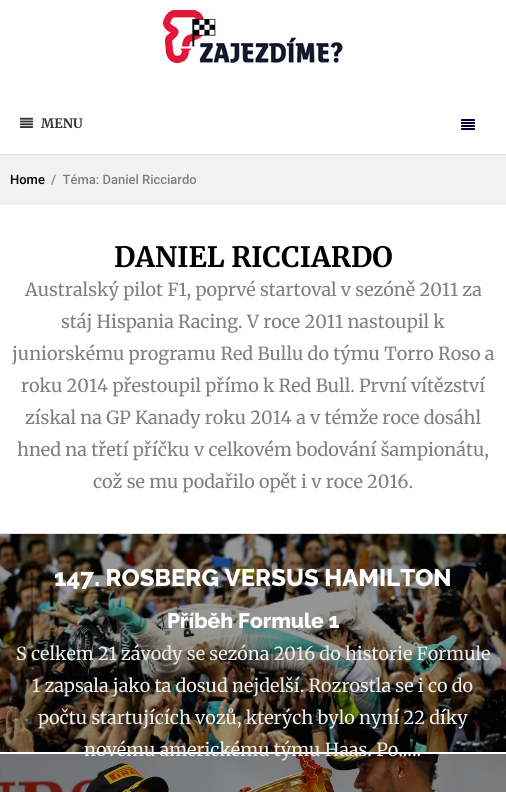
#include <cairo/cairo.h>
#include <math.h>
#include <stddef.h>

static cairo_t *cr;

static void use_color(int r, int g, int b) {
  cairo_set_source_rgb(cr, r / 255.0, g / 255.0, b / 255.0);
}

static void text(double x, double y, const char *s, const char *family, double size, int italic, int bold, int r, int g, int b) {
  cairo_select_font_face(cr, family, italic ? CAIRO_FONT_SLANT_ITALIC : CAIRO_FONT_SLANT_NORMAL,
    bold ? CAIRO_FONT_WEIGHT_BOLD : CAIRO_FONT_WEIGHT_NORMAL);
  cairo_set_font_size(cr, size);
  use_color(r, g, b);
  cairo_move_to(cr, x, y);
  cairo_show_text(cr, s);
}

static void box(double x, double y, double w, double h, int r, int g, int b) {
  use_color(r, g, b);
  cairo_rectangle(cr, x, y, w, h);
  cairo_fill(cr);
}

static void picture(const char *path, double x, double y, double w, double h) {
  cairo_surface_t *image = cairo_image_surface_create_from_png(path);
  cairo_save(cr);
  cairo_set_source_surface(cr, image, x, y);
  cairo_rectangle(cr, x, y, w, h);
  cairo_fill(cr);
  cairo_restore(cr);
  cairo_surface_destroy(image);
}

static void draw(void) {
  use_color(255, 255, 255);
  cairo_paint(cr);
  box(0, 154, 506, 1, 232, 232, 232);
  picture("img_01.png", 163, 10, 180, 53);
  picture("img_02.png", 20, 117, 13, 11);
  picture("img_03.png", 461, 119, 14, 11);
  box(0, 155, 506, 50, 242, 242, 242);
  box(0, 533, 506, 1, 227, 227, 227);
  box(0, 534, 506, 218, 0, 0, 0);
  picture("img_04.png", 0, 534, 506, 218);
  box(0, 754, 506, 38, 0, 0, 0);
  picture("img_05.png", 0, 754, 506, 38);
  text(41, 128, "MENU", "Merriweather", 13, 0, 1, 51, 51, 51);
  text(10, 184, "Home", "Roboto Medium", 13, 0, 0, 0, 0, 0);
  text(51, 184, "/  Téma: Daniel Ricciardo", "Roboto Medium", 13, 0, 0, 127, 127, 127);
  text(114, 267, "DANIEL RICCIARDO", "Merriweather", 28, 0, 1, 0, 0, 0);
  text(25, 296, "Australský pilot F1, poprvé startoval v sezóně 2011 za", "Merriweather", 18, 0, 0, 127, 127, 127);
  text(61, 328, "stáj Hispania Racing. V roce 2011 nastoupil k", "Merriweather", 18, 0, 0, 127, 127, 127);
  text(12, 360, "juniorskému programu Red Bullu do týmu Torro Roso a", "Merriweather", 18, 0, 0, 127, 127, 127);
  text(21, 392, "roku 2014 přestoupil přímo k Red Bull. První vítězství", "Merriweather", 18, 0, 0, 127, 127, 127);
  text(25, 424, "získal na GP Kanady roku 2014 a v témže roce dosáhl", "Merriweather", 18, 0, 0, 127, 127, 127);
  text(17, 456, "hned na třetí příčku v celkovém bodování šampionátu,", "Merriweather", 18, 0, 0, 127, 127, 127);
  text(93, 488, "což se mu podařilo opět i v roce 2016.", "Merriweather", 18, 0, 0, 127, 127, 127);
  text(54, 586, "147. ROSBERG VERSUS HAMILTON", "Raleway Thin", 24, 0, 0, 255, 255, 255);
  text(167, 628, "Příběh Formule 1", "Raleway Thin", 21, 0, 0, 255, 255, 255);
  text(16, 660, "S celkem 21 závody se sezóna 2016 do historie Formule", "Merriweather", 18, 0, 0, 237, 237, 237);
  text(32, 692, "1 zapsala jako ta dosud nejdelší. Rozrostla se i co do", "Merriweather", 18, 0, 0, 237, 237, 237);
  text(38, 724, "počtu startujících vozů, kterých bylo nyní 22 díky", "Merriweather", 18, 0, 0, 237, 237, 237);
  text(84, 756, "novému americkému týmu Haas. Po.....", "Merriweather", 18, 0, 0, 237, 237, 237);
}

int main(void) {
  cairo_surface_t *surface = cairo_image_surface_create(CAIRO_FORMAT_RGB24, 506, 792);
  cr = cairo_create(surface);
  cairo_font_options_t *options = cairo_font_options_create();
  cairo_font_options_set_hint_metrics(options, CAIRO_HINT_METRICS_OFF);
  cairo_font_options_set_hint_style(options, CAIRO_HINT_STYLE_NONE);
  cairo_set_font_options(cr, options);
  cairo_set_miter_limit(cr, 4);
  draw();
  cairo_surface_write_to_png(surface, "out.png");
  cairo_font_options_destroy(options);
  cairo_destroy(cr);
  cairo_surface_destroy(surface);
  return 0;
}
